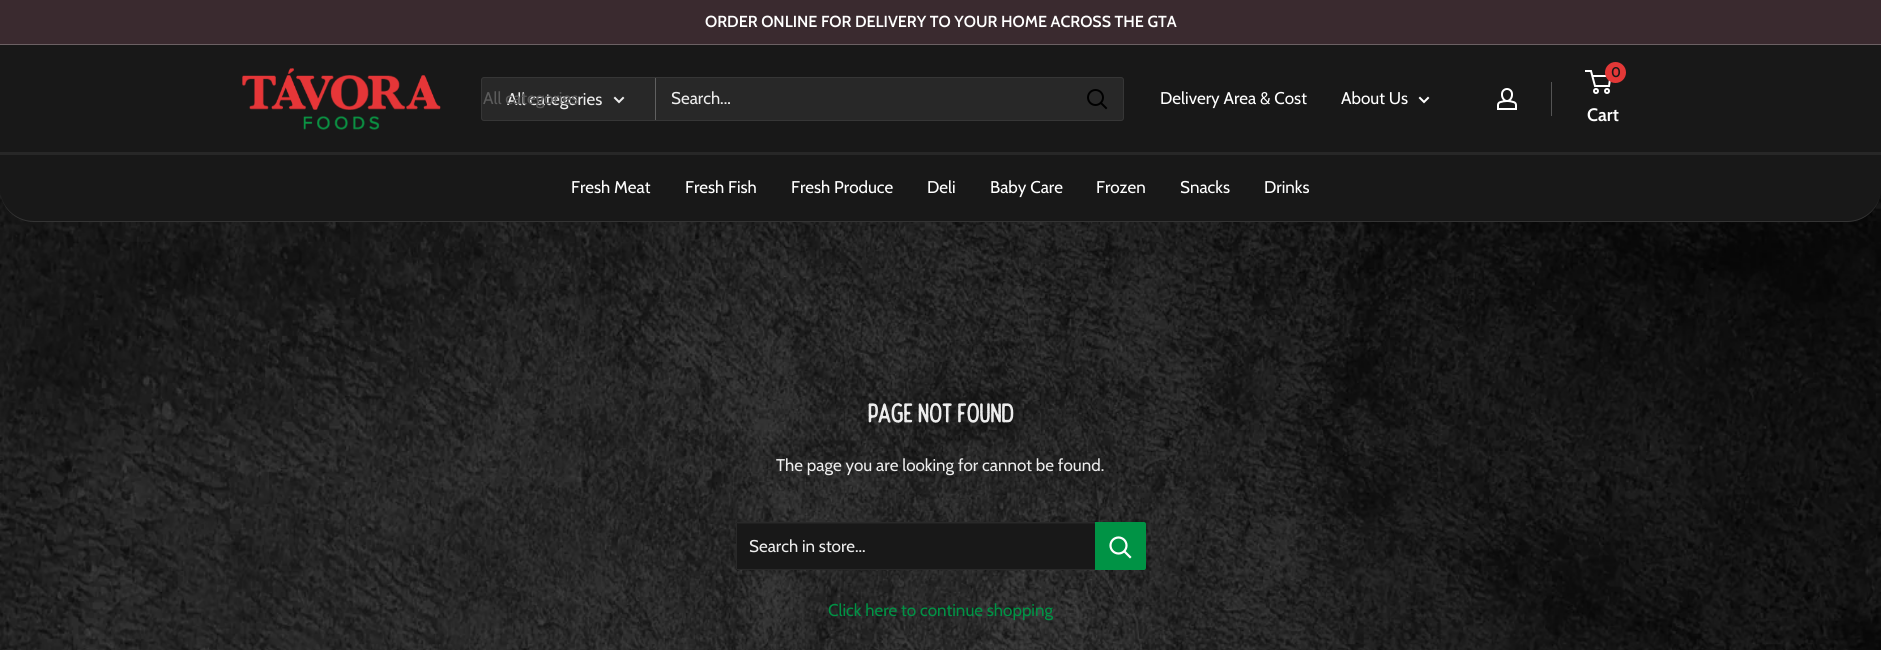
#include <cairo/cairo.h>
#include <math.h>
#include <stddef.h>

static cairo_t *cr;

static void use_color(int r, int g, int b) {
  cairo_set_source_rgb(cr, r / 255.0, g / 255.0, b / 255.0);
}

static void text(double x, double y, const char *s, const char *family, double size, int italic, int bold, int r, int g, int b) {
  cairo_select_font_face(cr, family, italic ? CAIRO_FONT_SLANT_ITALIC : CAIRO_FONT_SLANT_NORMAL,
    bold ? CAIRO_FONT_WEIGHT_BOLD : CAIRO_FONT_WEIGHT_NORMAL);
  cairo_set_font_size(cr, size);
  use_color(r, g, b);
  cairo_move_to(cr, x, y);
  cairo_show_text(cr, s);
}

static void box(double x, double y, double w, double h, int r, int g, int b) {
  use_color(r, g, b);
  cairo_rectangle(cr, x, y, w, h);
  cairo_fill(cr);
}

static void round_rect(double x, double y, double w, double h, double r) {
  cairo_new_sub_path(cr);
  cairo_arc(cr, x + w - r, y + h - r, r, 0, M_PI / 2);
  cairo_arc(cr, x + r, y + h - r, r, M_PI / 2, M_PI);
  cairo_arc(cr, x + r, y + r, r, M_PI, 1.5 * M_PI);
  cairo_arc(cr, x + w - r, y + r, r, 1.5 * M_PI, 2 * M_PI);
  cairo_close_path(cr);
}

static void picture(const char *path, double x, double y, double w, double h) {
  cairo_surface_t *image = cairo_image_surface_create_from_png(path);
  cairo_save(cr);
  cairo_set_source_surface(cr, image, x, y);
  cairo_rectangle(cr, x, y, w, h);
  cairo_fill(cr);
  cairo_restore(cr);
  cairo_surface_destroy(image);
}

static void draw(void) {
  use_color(255, 255, 255);
  cairo_paint(cr);
  picture("img_01.png", 0, 188, 1881, 462);
  box(0, 0, 1881, 44, 58, 42, 47);
  box(0, 44, 1881, 1, 108, 97, 100);
  box(0, 45, 1881, 107, 24, 24, 24);
  picture("img_02.png", 242, 68, 199, 62);
  use_color(40, 40, 40);
  round_rect(481.5, 77.5, 642, 43, 2.5);
  cairo_fill_preserve(cr);
  use_color(54, 54, 54);
  cairo_set_line_width(cr, 1);
  cairo_stroke(cr);
  box(655, 78, 1, 42, 96, 96, 96);
  cairo_new_path(cr);
  cairo_move_to(cr, 623, 98);
  cairo_line_to(cr, 619, 102);
  cairo_line_to(cr, 615, 98);
  use_color(237, 237, 237);
  cairo_set_line_width(cr, 2);
  cairo_set_line_cap(cr, CAIRO_LINE_CAP_SQUARE);
  cairo_stroke(cr);
  cairo_new_path(cr);
  cairo_move_to(cr, 1106, 108);
  cairo_line_to(cr, 1101, 103);
  use_color(0, 0, 0);
  cairo_stroke(cr);
  cairo_arc(cr, 1095.5, 97.5, 7.5, 0, 2 * M_PI);
  cairo_set_line_cap(cr, CAIRO_LINE_CAP_BUTT);
  cairo_stroke(cr);
  cairo_new_path(cr);
  cairo_move_to(cr, 1428, 98);
  cairo_line_to(cr, 1424, 102);
  cairo_line_to(cr, 1420, 98);
  use_color(255, 255, 255);
  cairo_set_line_cap(cr, CAIRO_LINE_CAP_SQUARE);
  cairo_stroke(cr);
  picture("img_03.png", 1497, 88, 20, 22);
  box(1551, 82, 1, 34, 84, 84, 84);
  cairo_arc(cr, 1596, 91, 2, 0, 2 * M_PI);
  use_color(255, 255, 255);
  cairo_set_line_cap(cr, CAIRO_LINE_CAP_BUTT);
  cairo_stroke(cr);
  cairo_arc(cr, 1607, 91, 2, 0, 2 * M_PI);
  cairo_stroke(cr);
  cairo_new_path(cr);
  cairo_move_to(cr, 1592.5, 76);
  cairo_line_to(cr, 1610.5, 76);
  cairo_line_to(cr, 1609, 86);
  cairo_line_to(cr, 1595, 86);
  cairo_line_to(cr, 1591, 71);
  cairo_line_to(cr, 1585, 71);
  cairo_stroke(cr);
  use_color(227, 56, 55);
  cairo_arc(cr, 1615.5, 72.5, 10.5, 0, 2 * M_PI);
  cairo_fill(cr);
  use_color(24, 24, 24);
  cairo_new_path(cr);
  cairo_move_to(cr, 0, 152);
  cairo_line_to(cr, 1881, 152);
  cairo_line_to(cr, 1881, 188);
  cairo_curve_to(cr, 1881, 207, 1866, 222, 1847, 222);
  cairo_line_to(cr, 34, 222);
  cairo_curve_to(cr, 15, 222, 0, 207, 0, 188);
  cairo_close_path(cr);
  cairo_fill(cr);
  box(0, 152, 1881, 3, 39, 39, 39);
  cairo_set_source_rgba(cr, 0.502, 0.502, 0.502, 0.28);
  cairo_new_path(cr);
  cairo_move_to(cr, 34, 222);
  cairo_line_to(cr, 1847, 222);
  cairo_curve_to(cr, 1866, 222, 1881, 207, 1881, 188);
  cairo_curve_to(cr, 1881, 206, 1866, 221, 1847, 221);
  cairo_line_to(cr, 34, 221);
  cairo_curve_to(cr, 15, 221, 0, 206, 0, 188);
  cairo_curve_to(cr, 0, 207, 15, 222, 34, 222);
  cairo_close_path(cr);
  cairo_fill(cr);
  use_color(24, 24, 24);
  cairo_new_path(cr);
  cairo_move_to(cr, 738, 522);
  cairo_line_to(cr, 1095, 522);
  cairo_line_to(cr, 1095, 570);
  cairo_line_to(cr, 738, 570);
  cairo_curve_to(cr, 737, 570, 736, 569, 736, 568);
  cairo_line_to(cr, 736, 524);
  cairo_curve_to(cr, 736, 523, 737, 522, 738, 522);
  cairo_close_path(cr);
  cairo_fill(cr);
  use_color(32, 32, 32);
  cairo_new_path(cr);
  cairo_move_to(cr, 738, 524);
  cairo_line_to(cr, 1095, 524);
  cairo_line_to(cr, 1095, 523);
  cairo_line_to(cr, 738, 523);
  cairo_curve_to(cr, 737, 523, 737, 524, 737, 525);
  cairo_curve_to(cr, 737, 524, 737, 524, 738, 524);
  cairo_close_path(cr);
  cairo_fill(cr);
  box(737, 522, 358, 1, 41, 41, 41);
  box(737, 569, 358, 1, 41, 41, 41);
  box(736, 523, 1, 46, 41, 41, 41);
  use_color(0, 147, 69);
  cairo_new_path(cr);
  cairo_move_to(cr, 1095, 522);
  cairo_line_to(cr, 1144, 522);
  cairo_curve_to(cr, 1145, 522, 1146, 523, 1146, 524);
  cairo_line_to(cr, 1146, 568);
  cairo_curve_to(cr, 1146, 569, 1145, 570, 1144, 570);
  cairo_line_to(cr, 1095, 570);
  cairo_close_path(cr);
  cairo_fill(cr);
  cairo_new_path(cr);
  cairo_move_to(cr, 1130, 557);
  cairo_line_to(cr, 1124.5, 551.5);
  use_color(255, 255, 255);
  cairo_set_line_width(cr, 2.2);
  cairo_set_line_cap(cr, CAIRO_LINE_CAP_SQUARE);
  cairo_stroke(cr);
  cairo_arc(cr, 1118.5, 545.5, 8, 0, 2 * M_PI);
  cairo_set_line_cap(cr, CAIRO_LINE_CAP_BUTT);
  cairo_stroke(cr);
  text(705, 27, "ORDER ONLINE FOR DELIVERY TO YOUR HOME ACROSS THE GTA", "Cabin SemiBold", 16, 0, 0, 255, 255, 255);
  text(507, 105, "All categories", "Cabin", 17, 0, 0, 237, 237, 237);
  text(483, 104, "All categories", "Cabin", 17, 0, 0, 91, 91, 91);
  text(671, 104, "Search...", "Cabin", 17, 0, 0, 237, 237, 237);
  text(1160, 104, "Delivery Area & Cost", "Cabin", 17, 0, 0, 255, 255, 255);
  text(1341, 104, "About Us", "Cabin", 17, 0, 0, 255, 255, 255);
  text(1611, 77, "0", "Cabin SemiBold", 14, 0, 0, 24, 24, 24);
  text(1587, 121, "Cart", "Cabin SemiBold", 18, 0, 0, 255, 255, 255);
  text(571, 193, "Fresh Meat", "Cabin", 17, 0, 0, 255, 255, 255);
  text(685, 193, "Fresh Fish", "Cabin", 17, 0, 0, 255, 255, 255);
  text(791, 193, "Fresh Produce", "Cabin", 17, 0, 0, 255, 255, 255);
  text(927, 193, "Deli", "Cabin", 17, 0, 0, 255, 255, 255);
  text(990, 193, "Baby Care", "Cabin", 17, 0, 0, 255, 255, 255);
  text(1096, 193, "Frozen", "Cabin", 17, 0, 0, 255, 255, 255);
  text(1180, 193, "Snacks", "Cabin", 17, 0, 0, 255, 255, 255);
  text(1264, 193, "Drinks", "Cabin", 17, 0, 0, 255, 255, 255);
  text(868, 420, "PAGE NOT FOUND", "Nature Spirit", 30, 0, 0, 237, 237, 237);
  text(776, 471, "The page you are looking for cannot be found.", "Cabin", 17, 0, 0, 237, 237, 237);
  text(749, 552, "Search in store...", "Cabin", 17, 0, 0, 237, 237, 237);
  text(828, 616, "Click here to continue shopping", "Cabin", 17, 0, 0, 0, 147, 69);
}

int main(void) {
  cairo_surface_t *surface = cairo_image_surface_create(CAIRO_FORMAT_RGB24, 1881, 650);
  cr = cairo_create(surface);
  cairo_font_options_t *options = cairo_font_options_create();
  cairo_font_options_set_hint_metrics(options, CAIRO_HINT_METRICS_OFF);
  cairo_font_options_set_hint_style(options, CAIRO_HINT_STYLE_NONE);
  cairo_set_font_options(cr, options);
  cairo_set_miter_limit(cr, 4);
  draw();
  cairo_surface_write_to_png(surface, "out.png");
  cairo_font_options_destroy(options);
  cairo_destroy(cr);
  cairo_surface_destroy(surface);
  return 0;
}
